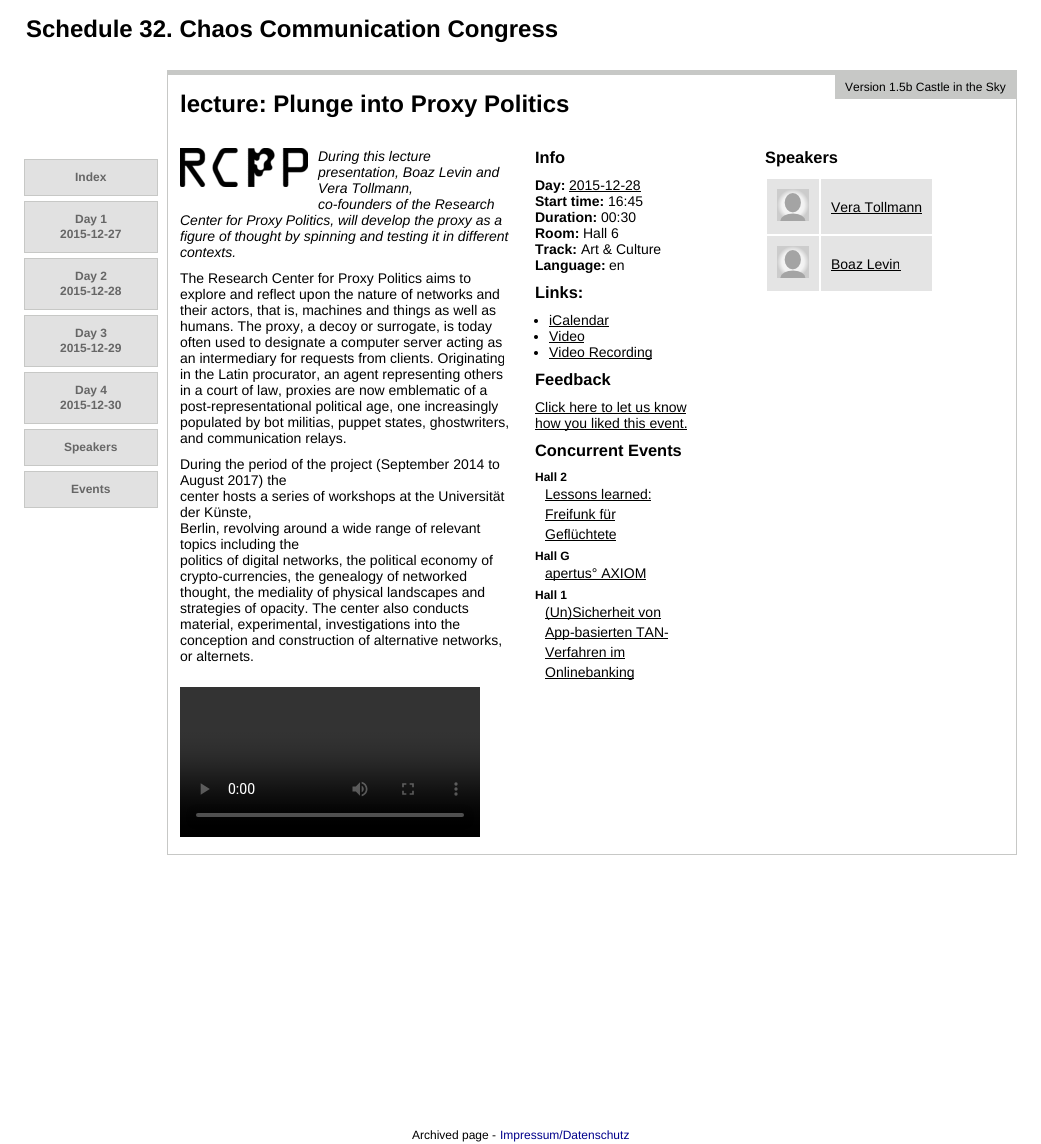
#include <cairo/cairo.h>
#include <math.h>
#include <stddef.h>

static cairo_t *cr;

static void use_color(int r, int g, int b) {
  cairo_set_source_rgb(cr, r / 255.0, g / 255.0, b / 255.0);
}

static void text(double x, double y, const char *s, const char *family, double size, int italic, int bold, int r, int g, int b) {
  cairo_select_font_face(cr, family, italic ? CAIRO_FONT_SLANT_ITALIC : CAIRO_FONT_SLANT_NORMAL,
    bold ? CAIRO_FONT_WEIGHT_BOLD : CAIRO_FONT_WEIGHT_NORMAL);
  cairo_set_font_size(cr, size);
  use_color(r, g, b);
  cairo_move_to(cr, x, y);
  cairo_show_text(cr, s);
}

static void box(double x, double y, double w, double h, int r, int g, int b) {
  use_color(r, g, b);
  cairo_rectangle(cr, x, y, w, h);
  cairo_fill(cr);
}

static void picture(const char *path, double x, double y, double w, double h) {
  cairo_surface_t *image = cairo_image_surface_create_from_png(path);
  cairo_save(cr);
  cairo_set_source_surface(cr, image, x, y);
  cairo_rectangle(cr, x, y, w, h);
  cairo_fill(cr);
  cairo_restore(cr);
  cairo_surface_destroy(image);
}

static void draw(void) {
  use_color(255, 255, 255);
  cairo_paint(cr);
  use_color(225, 225, 225);
  cairo_rectangle(cr, 24.5, 159.5, 133, 36);
  cairo_fill_preserve(cr);
  use_color(199, 200, 198);
  cairo_set_line_width(cr, 1);
  cairo_stroke(cr);
  use_color(225, 225, 225);
  cairo_rectangle(cr, 24.5, 201.5, 133, 51);
  cairo_fill_preserve(cr);
  use_color(199, 200, 198);
  cairo_stroke(cr);
  use_color(225, 225, 225);
  cairo_rectangle(cr, 24.5, 258.5, 133, 51);
  cairo_fill_preserve(cr);
  use_color(199, 200, 198);
  cairo_stroke(cr);
  use_color(225, 225, 225);
  cairo_rectangle(cr, 24.5, 315.5, 133, 51);
  cairo_fill_preserve(cr);
  use_color(199, 200, 198);
  cairo_stroke(cr);
  use_color(225, 225, 225);
  cairo_rectangle(cr, 24.5, 372.5, 133, 51);
  cairo_fill_preserve(cr);
  use_color(199, 200, 198);
  cairo_stroke(cr);
  use_color(225, 225, 225);
  cairo_rectangle(cr, 24.5, 429.5, 133, 36);
  cairo_fill_preserve(cr);
  use_color(199, 200, 198);
  cairo_stroke(cr);
  use_color(225, 225, 225);
  cairo_rectangle(cr, 24.5, 471.5, 133, 36);
  cairo_fill_preserve(cr);
  use_color(199, 200, 198);
  cairo_stroke(cr);
  box(167, 70, 850, 5, 199, 200, 198);
  box(1016, 70, 1, 785, 199, 200, 198);
  box(167, 854, 850, 1, 199, 200, 198);
  box(167, 70, 1, 785, 199, 200, 198);
  box(835, 75, 181, 24, 199, 200, 198);
  picture("img_01.png", 180, 148, 128, 39);
  box(569, 191, 72, 1, 0, 0, 0);
  cairo_arc(cr, 536, 321, 2, 0, 2 * M_PI);
  cairo_fill(cr);
  box(549, 326, 60, 1, 0, 0, 0);
  cairo_arc(cr, 536, 337, 2, 0, 2 * M_PI);
  cairo_fill(cr);
  box(549, 342, 35, 1, 0, 0, 0);
  cairo_arc(cr, 536, 353, 2, 0, 2 * M_PI);
  cairo_fill(cr);
  box(549, 358, 103, 1, 0, 0, 0);
  box(535, 413, 151, 1, 0, 0, 0);
  box(535, 429, 152, 1, 0, 0, 0);
  box(545, 500, 106, 1, 0, 0, 0);
  box(545, 520, 70, 1, 0, 0, 0);
  box(545, 540, 71, 1, 0, 0, 0);
  box(545, 579, 101, 1, 0, 0, 0);
  box(545, 618, 116, 1, 0, 0, 0);
  box(545, 638, 123, 1, 0, 0, 0);
  box(545, 658, 80, 1, 0, 0, 0);
  box(545, 678, 89, 1, 0, 0, 0);
  box(767, 179, 52, 55, 228, 228, 228);
  picture("img_02.png", 777, 189, 32, 32);
  box(821, 179, 111, 55, 228, 228, 228);
  box(831, 213, 91, 1, 0, 0, 0);
  box(767, 236, 52, 55, 228, 228, 228);
  picture("img_02.png", 777, 246, 32, 32);
  box(821, 236, 111, 55, 228, 228, 228);
  box(831, 270, 70, 1, 0, 0, 0);
  picture("img_03.png", 180, 687, 300, 150);
  text(26, 37, "Schedule 32. Chaos Communication Congress", "Liberation Sans", 24, 0, 1, 0, 0, 0);
  text(75, 181, "Index", "Liberation Sans", 12, 0, 1, 102, 102, 102);
  text(75, 223, "Day 1", "Liberation Sans", 12, 0, 1, 102, 102, 102);
  text(60, 238, "2015-12-27", "Liberation Sans", 12, 0, 1, 102, 102, 102);
  text(75, 280, "Day 2", "Liberation Sans", 12, 0, 1, 102, 102, 102);
  text(60, 295, "2015-12-28", "Liberation Sans", 12, 0, 1, 102, 102, 102);
  text(75, 337, "Day 3", "Liberation Sans", 12, 0, 1, 102, 102, 102);
  text(60, 352, "2015-12-29", "Liberation Sans", 12, 0, 1, 102, 102, 102);
  text(75, 394, "Day 4", "Liberation Sans", 12, 0, 1, 102, 102, 102);
  text(60, 409, "2015-12-30", "Liberation Sans", 12, 0, 1, 102, 102, 102);
  text(64, 451, "Speakers", "Liberation Sans", 12, 0, 1, 102, 102, 102);
  text(71, 493, "Events", "Liberation Sans", 12, 0, 1, 102, 102, 102);
  text(845, 91, "Version 1.5b Castle in the Sky", "Liberation Sans", 12, 0, 0, 0, 0, 0);
  text(180, 112, "lecture: Plunge into Proxy Politics", "Liberation Sans", 24, 0, 1, 0, 0, 0);
  text(318, 161, "During this lecture", "Liberation Sans", 14, 1, 0, 0, 0, 0);
  text(318, 177, "presentation, Boaz Levin and", "Liberation Sans", 14, 1, 0, 0, 0, 0);
  text(318, 193, "Vera Tollmann,", "Liberation Sans", 14, 1, 0, 0, 0, 0);
  text(318, 209, "co-founders of the Research", "Liberation Sans", 14, 1, 0, 0, 0, 0);
  text(180, 225, "Center for Proxy Politics, will develop the proxy as a", "Liberation Sans", 14, 1, 0, 0, 0, 0);
  text(180, 241, "figure of thought by spinning and testing it in different", "Liberation Sans", 14, 1, 0, 0, 0, 0);
  text(180, 257, "contexts.", "Liberation Sans", 14, 1, 0, 0, 0, 0);
  text(180, 283, "The Research Center for Proxy Politics aims to", "Liberation Sans", 14, 0, 0, 0, 0, 0);
  text(180, 299, "explore and reflect upon the nature of networks and", "Liberation Sans", 14, 0, 0, 0, 0, 0);
  text(180, 315, "their actors, that is, machines and things as well as", "Liberation Sans", 14, 0, 0, 0, 0, 0);
  text(180, 331, "humans. The proxy, a decoy or surrogate, is today", "Liberation Sans", 14, 0, 0, 0, 0, 0);
  text(180, 347, "often used to designate a computer server acting as", "Liberation Sans", 14, 0, 0, 0, 0, 0);
  text(180, 363, "an intermediary for requests from clients. Originating", "Liberation Sans", 14, 0, 0, 0, 0, 0);
  text(180, 379, "in the Latin procurator, an agent representing others", "Liberation Sans", 14, 0, 0, 0, 0, 0);
  text(180, 395, "in a court of law, proxies are now emblematic of a", "Liberation Sans", 14, 0, 0, 0, 0, 0);
  text(180, 411, "post-representational political age, one increasingly", "Liberation Sans", 14, 0, 0, 0, 0, 0);
  text(180, 427, "populated by bot militias, puppet states, ghostwriters,", "Liberation Sans", 14, 0, 0, 0, 0, 0);
  text(180, 443, "and communication relays.", "Liberation Sans", 14, 0, 0, 0, 0, 0);
  text(180, 469, "During the period of the project (September 2014 to", "Liberation Sans", 14, 0, 0, 0, 0, 0);
  text(180, 485, "August 2017) the", "Liberation Sans", 14, 0, 0, 0, 0, 0);
  text(180, 501, "center hosts a series of workshops at the Universität", "Liberation Sans", 14, 0, 0, 0, 0, 0);
  text(180, 517, "der Künste,", "Liberation Sans", 14, 0, 0, 0, 0, 0);
  text(180, 533, "Berlin, revolving around a wide range of relevant", "Liberation Sans", 14, 0, 0, 0, 0, 0);
  text(180, 549, "topics including the", "Liberation Sans", 14, 0, 0, 0, 0, 0);
  text(180, 565, "politics of digital networks, the political economy of", "Liberation Sans", 14, 0, 0, 0, 0, 0);
  text(180, 581, "crypto-currencies, the genealogy of networked", "Liberation Sans", 14, 0, 0, 0, 0, 0);
  text(180, 597, "thought, the mediality of physical landscapes and", "Liberation Sans", 14, 0, 0, 0, 0, 0);
  text(180, 613, "strategies of opacity. The center also conducts", "Liberation Sans", 14, 0, 0, 0, 0, 0);
  text(180, 629, "material, experimental, investigations into the", "Liberation Sans", 14, 0, 0, 0, 0, 0);
  text(180, 645, "conception and construction of alternative networks,", "Liberation Sans", 14, 0, 0, 0, 0, 0);
  text(180, 661, "or alternets.", "Liberation Sans", 14, 0, 0, 0, 0, 0);
  text(535, 163, "Info", "Liberation Sans", 16.4, 0, 1, 0, 0, 0);
  text(535, 190, "Day:", "Liberation Sans", 14, 0, 1, 0, 0, 0);
  text(569, 190, "2015-12-28", "Liberation Sans", 14, 0, 0, 0, 0, 0);
  text(535, 206, "Start time:", "Liberation Sans", 14, 0, 1, 0, 0, 0);
  text(608, 206, "16:45", "Liberation Sans", 14, 0, 0, 0, 0, 0);
  text(535, 222, "Duration:", "Liberation Sans", 14, 0, 1, 0, 0, 0);
  text(601, 222, "00:30", "Liberation Sans", 14, 0, 0, 0, 0, 0);
  text(535, 238, "Room:", "Liberation Sans", 14, 0, 1, 0, 0, 0);
  text(583, 238, "Hall 6", "Liberation Sans", 14, 0, 0, 0, 0, 0);
  text(535, 254, "Track:", "Liberation Sans", 14, 0, 1, 0, 0, 0);
  text(581, 254, "Art & Culture", "Liberation Sans", 14, 0, 0, 0, 0, 0);
  text(535, 270, "Language:", "Liberation Sans", 14, 0, 1, 0, 0, 0);
  text(609, 270, "en", "Liberation Sans", 14, 0, 0, 0, 0, 0);
  text(535, 298, "Links:", "Liberation Sans", 16.4, 0, 1, 0, 0, 0);
  text(549, 325, "iCalendar", "Liberation Sans", 14, 0, 0, 0, 0, 0);
  text(549, 341, "Video", "Liberation Sans", 14, 0, 0, 0, 0, 0);
  text(549, 357, "Video Recording", "Liberation Sans", 14, 0, 0, 0, 0, 0);
  text(535, 385, "Feedback", "Liberation Sans", 16.4, 0, 1, 0, 0, 0);
  text(535, 412, "Click here to let us know", "Liberation Sans", 14, 0, 0, 0, 0, 0);
  text(535, 428, "how you liked this event.", "Liberation Sans", 14, 0, 0, 0, 0, 0);
  text(535, 456, "Concurrent Events", "Liberation Sans", 16.4, 0, 1, 0, 0, 0);
  text(535, 481, "Hall 2", "Liberation Sans", 12, 0, 1, 0, 0, 0);
  text(545, 499, "Lessons learned:", "Liberation Sans", 14, 0, 0, 0, 0, 0);
  text(545, 519, "Freifunk für", "Liberation Sans", 14, 0, 0, 0, 0, 0);
  text(545, 539, "Geflüchtete", "Liberation Sans", 14, 0, 0, 0, 0, 0);
  text(535, 560, "Hall G", "Liberation Sans", 12, 0, 1, 0, 0, 0);
  text(545, 578, "apertus° AXIOM", "Liberation Sans", 14, 0, 0, 0, 0, 0);
  text(535, 599, "Hall 1", "Liberation Sans", 12, 0, 1, 0, 0, 0);
  text(545, 617, "(Un)Sicherheit von", "Liberation Sans", 14, 0, 0, 0, 0, 0);
  text(545, 637, "App-basierten TAN-", "Liberation Sans", 14, 0, 0, 0, 0, 0);
  text(545, 657, "Verfahren im", "Liberation Sans", 14, 0, 0, 0, 0, 0);
  text(545, 677, "Onlinebanking", "Liberation Sans", 14, 0, 0, 0, 0, 0);
  text(765, 163, "Speakers", "Liberation Sans", 16.4, 0, 1, 0, 0, 0);
  text(831, 212, "Vera Tollmann", "Liberation Sans", 14, 0, 0, 0, 0, 0);
  text(831, 269, "Boaz Levin", "Liberation Sans", 14, 0, 0, 0, 0, 0);
  text(412, 1139, "Archived page -", "Liberation Sans", 12, 0, 0, 0, 0, 0);
  text(500, 1139, "Impressum/Datenschutz", "Liberation Sans", 12, 0, 0, 0, 0, 139);
}

int main(void) {
  cairo_surface_t *surface = cairo_image_surface_create(CAIRO_FORMAT_RGB24, 1041, 1144);
  cr = cairo_create(surface);
  cairo_font_options_t *options = cairo_font_options_create();
  cairo_font_options_set_hint_metrics(options, CAIRO_HINT_METRICS_OFF);
  cairo_font_options_set_hint_style(options, CAIRO_HINT_STYLE_NONE);
  cairo_set_font_options(cr, options);
  cairo_set_miter_limit(cr, 4);
  draw();
  cairo_surface_write_to_png(surface, "out.png");
  cairo_font_options_destroy(options);
  cairo_destroy(cr);
  cairo_surface_destroy(surface);
  return 0;
}
